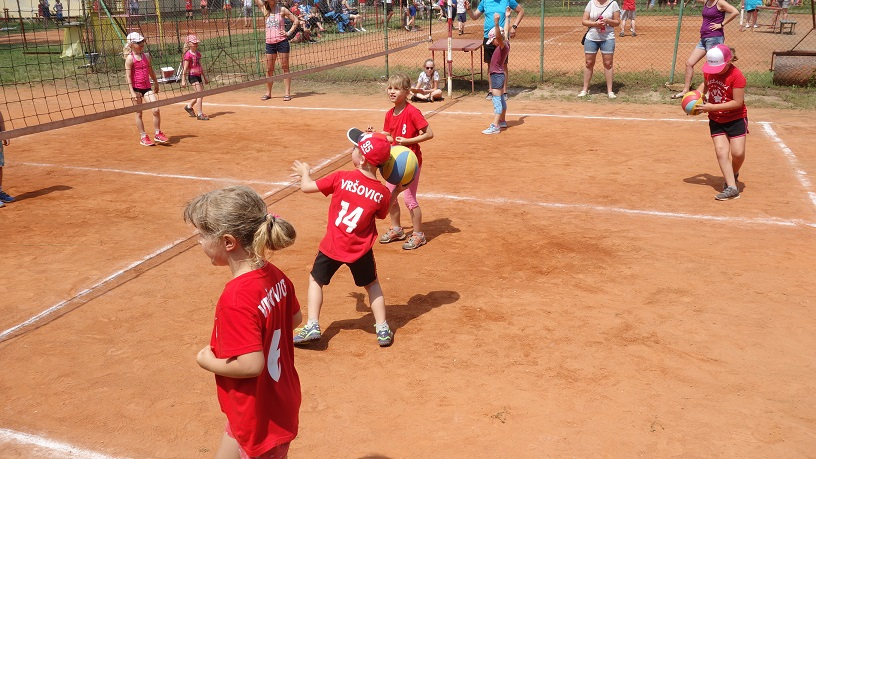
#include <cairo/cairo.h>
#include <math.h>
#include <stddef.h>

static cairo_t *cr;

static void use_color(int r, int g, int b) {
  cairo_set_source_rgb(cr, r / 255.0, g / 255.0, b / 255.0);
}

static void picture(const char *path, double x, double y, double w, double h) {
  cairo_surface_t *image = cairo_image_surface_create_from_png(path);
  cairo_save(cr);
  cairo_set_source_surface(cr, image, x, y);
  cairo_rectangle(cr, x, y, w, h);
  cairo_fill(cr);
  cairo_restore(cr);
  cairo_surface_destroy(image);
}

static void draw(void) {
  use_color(255, 255, 255);
  cairo_paint(cr);
  picture("img_01.png", 0, 0, 816, 459);
}

int main(void) {
  cairo_surface_t *surface = cairo_image_surface_create(CAIRO_FORMAT_RGB24, 879, 700);
  cr = cairo_create(surface);
  cairo_font_options_t *options = cairo_font_options_create();
  cairo_font_options_set_hint_metrics(options, CAIRO_HINT_METRICS_OFF);
  cairo_font_options_set_hint_style(options, CAIRO_HINT_STYLE_NONE);
  cairo_set_font_options(cr, options);
  cairo_set_miter_limit(cr, 4);
  draw();
  cairo_surface_write_to_png(surface, "out.png");
  cairo_font_options_destroy(options);
  cairo_destroy(cr);
  cairo_surface_destroy(surface);
  return 0;
}
